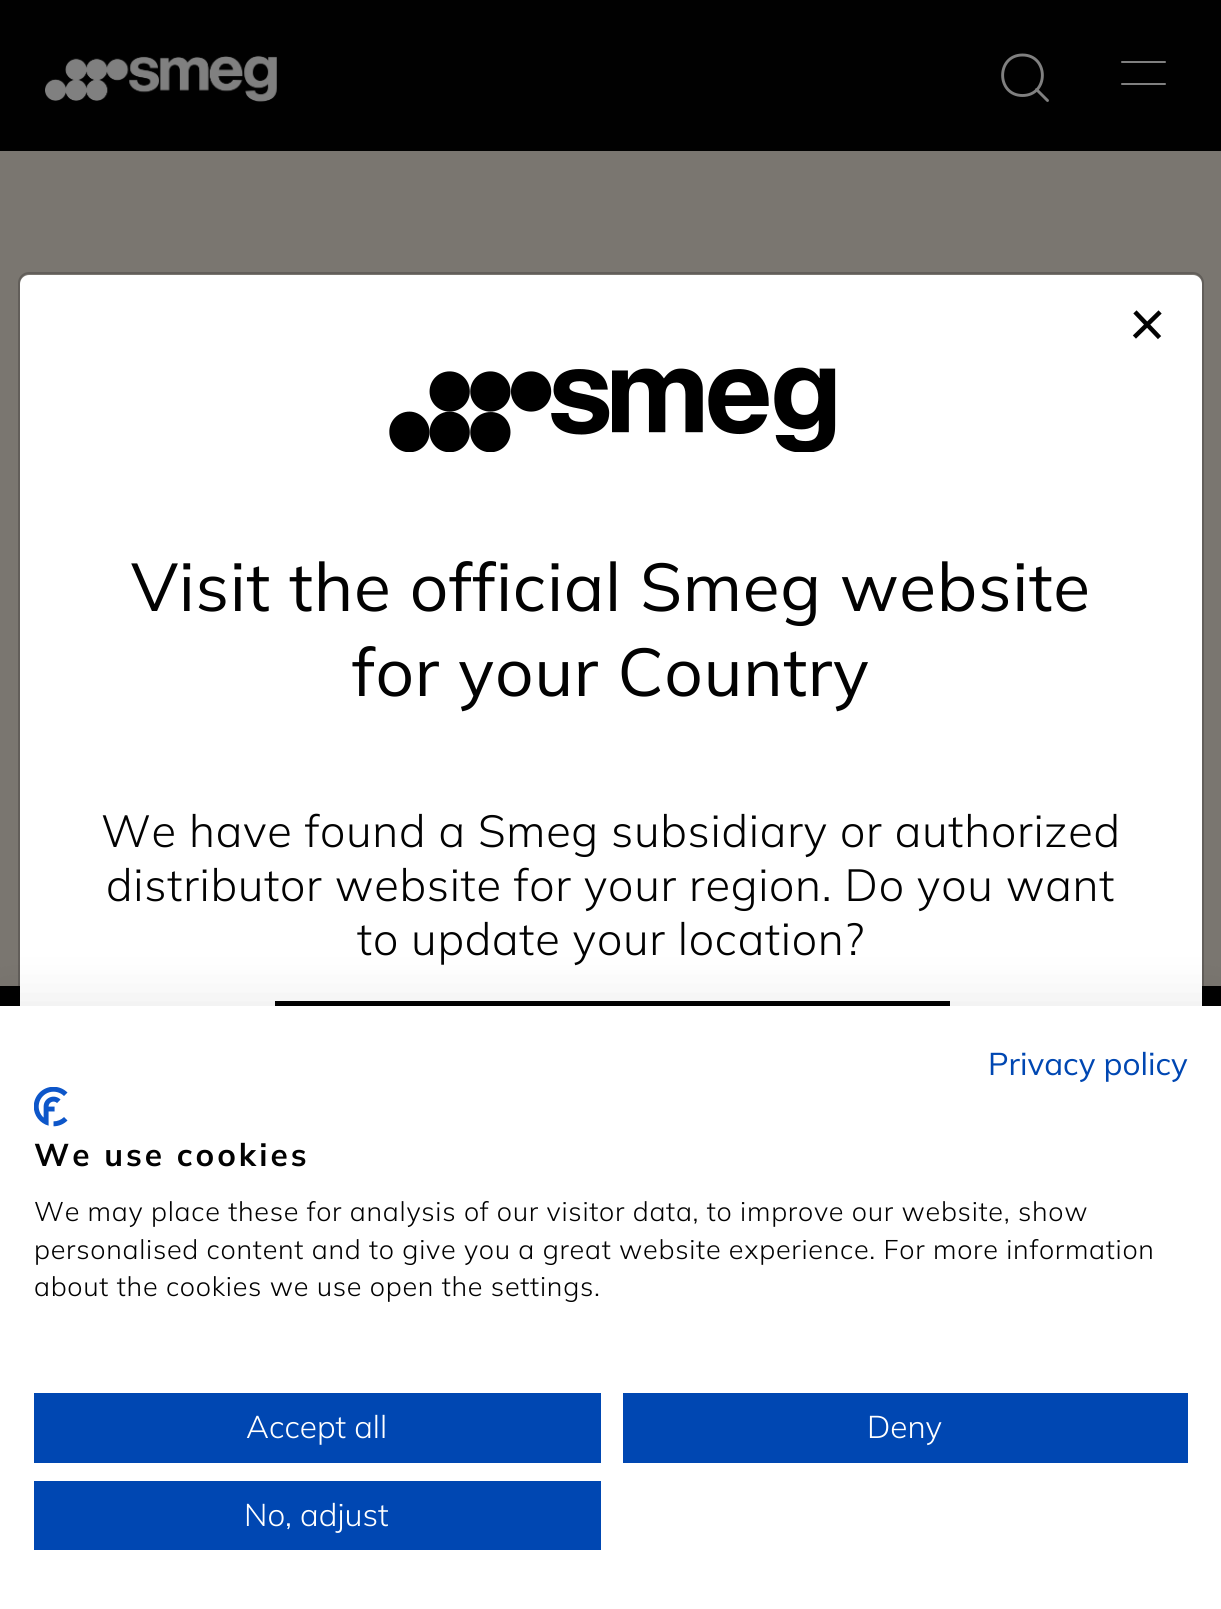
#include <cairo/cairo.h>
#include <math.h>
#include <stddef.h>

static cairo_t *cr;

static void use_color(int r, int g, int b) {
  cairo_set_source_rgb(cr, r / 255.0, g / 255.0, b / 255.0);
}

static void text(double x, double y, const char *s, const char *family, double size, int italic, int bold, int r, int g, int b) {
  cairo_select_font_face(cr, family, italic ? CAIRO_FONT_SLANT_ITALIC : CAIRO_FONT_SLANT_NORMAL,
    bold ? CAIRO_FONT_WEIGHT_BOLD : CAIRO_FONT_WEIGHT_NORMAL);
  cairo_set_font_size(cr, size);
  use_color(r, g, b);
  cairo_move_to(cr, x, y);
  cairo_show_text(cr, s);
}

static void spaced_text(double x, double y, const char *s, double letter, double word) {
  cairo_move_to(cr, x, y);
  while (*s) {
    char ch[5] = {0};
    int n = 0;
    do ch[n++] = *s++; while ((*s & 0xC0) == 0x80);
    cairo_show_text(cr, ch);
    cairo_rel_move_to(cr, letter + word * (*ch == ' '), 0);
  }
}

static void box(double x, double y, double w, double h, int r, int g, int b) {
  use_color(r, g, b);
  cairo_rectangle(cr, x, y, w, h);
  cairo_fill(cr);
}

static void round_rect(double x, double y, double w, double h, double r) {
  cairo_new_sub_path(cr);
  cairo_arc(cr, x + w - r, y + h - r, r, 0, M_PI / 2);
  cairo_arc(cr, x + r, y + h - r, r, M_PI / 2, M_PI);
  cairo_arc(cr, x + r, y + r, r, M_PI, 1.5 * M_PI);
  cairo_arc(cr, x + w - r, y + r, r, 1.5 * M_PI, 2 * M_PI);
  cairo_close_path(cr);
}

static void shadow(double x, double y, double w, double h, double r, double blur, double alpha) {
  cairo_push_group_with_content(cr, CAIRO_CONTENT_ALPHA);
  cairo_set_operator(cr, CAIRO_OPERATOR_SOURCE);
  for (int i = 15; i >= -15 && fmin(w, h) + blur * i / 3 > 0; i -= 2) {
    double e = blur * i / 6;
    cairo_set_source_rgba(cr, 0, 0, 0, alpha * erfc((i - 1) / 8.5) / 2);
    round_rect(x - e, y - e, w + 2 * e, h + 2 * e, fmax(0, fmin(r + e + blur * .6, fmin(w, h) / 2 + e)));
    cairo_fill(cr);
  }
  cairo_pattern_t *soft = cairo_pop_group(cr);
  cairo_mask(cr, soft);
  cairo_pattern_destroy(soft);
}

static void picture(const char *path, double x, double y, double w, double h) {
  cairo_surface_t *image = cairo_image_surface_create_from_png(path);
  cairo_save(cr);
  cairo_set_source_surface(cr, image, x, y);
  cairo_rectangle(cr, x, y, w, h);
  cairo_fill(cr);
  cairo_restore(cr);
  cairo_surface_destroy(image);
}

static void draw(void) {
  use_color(1, 1, 1);
  cairo_paint(cr);
  picture("img_01.png", 45, 55, 232, 47);
  cairo_new_path(cr);
  cairo_move_to(cr, 1022.5, 95.5);
  cairo_curve_to(cr, 1049, 95.5, 1049, 55, 1022.5, 55);
  cairo_curve_to(cr, 996, 55, 996, 95.5, 1022.5, 95.5);
  cairo_close_path(cr);
  cairo_move_to(cr, 1047.5, 100.5);
  cairo_line_to(cr, 1036.5, 89.5);
  use_color(128, 128, 128);
  cairo_set_line_width(cr, 2.9);
  cairo_set_line_cap(cr, CAIRO_LINE_CAP_ROUND);
  cairo_set_line_join(cr, CAIRO_LINE_JOIN_ROUND);
  cairo_stroke(cr);
  round_rect(1121, 61, 45, 2, 1);
  cairo_fill(cr);
  round_rect(1121, 83, 45, 2, 1);
  cairo_fill(cr);
  box(0, 151, 1221, 835, 122, 118, 112);
  use_color(255, 255, 255);
  round_rect(20, 275, 1182, 1062, 9);
  cairo_fill(cr);
  round_rect(19, 273, 1184, 1065, 10);
  cairo_set_source_rgba(cr, 0, 0, 0, 0.2);
  cairo_set_line_width(cr, 2);
  cairo_set_line_cap(cr, CAIRO_LINE_CAP_BUTT);
  cairo_set_line_join(cr, CAIRO_LINE_JOIN_MITER);
  cairo_stroke(cr);
  cairo_new_path(cr);
  cairo_move_to(cr, 1136.5, 313.5);
  cairo_line_to(cr, 1158, 336);
  cairo_move_to(cr, 1136, 335.5);
  cairo_line_to(cr, 1158.5, 313.5);
  use_color(2, 2, 2);
  cairo_set_line_width(cr, 4.5);
  cairo_set_line_cap(cr, CAIRO_LINE_CAP_SQUARE);
  cairo_stroke(cr);
  picture("img_02.png", 389, 367, 447, 85);
  box(277, 1003, 671, 3, 0, 0, 0);
  cairo_rectangle(cr, 276, 1002, 673, 100);
  use_color(2, 2, 2);
  cairo_set_line_width(cr, 2);
  cairo_set_line_cap(cr, CAIRO_LINE_CAP_BUTT);
  cairo_stroke(cr);
  use_color(0, 0, 0);
  shadow(0, 1006, 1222, 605, 0, 27, 0.1);
  box(0, 1006, 1221, 603, 255, 255, 255);
  picture("img_03.png", 34, 1087, 34, 40);
  box(34, 1393, 567, 70, 0, 71, 178);
  box(623, 1393, 565, 70, 0, 71, 178);
  box(34, 1481, 567, 69, 0, 71, 178);
  cairo_select_font_face(cr, "Mulish", CAIRO_FONT_SLANT_NORMAL, CAIRO_FONT_WEIGHT_NORMAL);
  cairo_set_font_size(cr, 67.5);
  use_color(2, 2, 2);
  spaced_text(131, 611, "Visit the official Smeg website", 0.72, 0);
  spaced_text(352, 696, "for your Country", 0.72, 0);
  cairo_select_font_face(cr, "Mulish Light", CAIRO_FONT_SLANT_NORMAL, CAIRO_FONT_WEIGHT_NORMAL);
  cairo_set_font_size(cr, 45);
  spaced_text(101, 847, "We have found a Smeg subsidiary or authorized", 0.72, 0);
  spaced_text(106, 901, "distributor website for your region. Do you want", 0.72, 0);
  spaced_text(357, 955, "to update your location?", 0.72, 0);
  text(988, 1075, "Privacy policy", "Mulish", 31.5, 0, 0, 0, 71, 178);
  cairo_select_font_face(cr, "Mulish", CAIRO_FONT_SLANT_NORMAL, CAIRO_FONT_WEIGHT_BOLD);
  use_color(2, 2, 2);
  spaced_text(34, 1166, "We use cookies", 3, 0);
  cairo_select_font_face(cr, "Mulish Light", CAIRO_FONT_SLANT_NORMAL, CAIRO_FONT_WEIGHT_NORMAL);
  cairo_set_font_size(cr, 27);
  spaced_text(34, 1221, "We may place these for analysis of our visitor data, to improve our website, show", 0.72, 0);
  spaced_text(34, 1259, "personalised content and to give you a great website experience. For more information", 0.72, 0);
  spaced_text(34, 1296, "about the cookies we use open the settings.", 0.72, 0);
  text(246, 1438, "Accept all", "Mulish Light", 31.5, 0, 0, 255, 255, 255);
  text(867, 1438, "Deny", "Mulish Light", 31.5, 0, 0, 255, 255, 255);
  text(244, 1526, "No, adjust", "Mulish Light", 31.5, 0, 0, 255, 255, 255);
}

int main(void) {
  cairo_surface_t *surface = cairo_image_surface_create(CAIRO_FORMAT_RGB24, 1221, 1609);
  cr = cairo_create(surface);
  cairo_font_options_t *options = cairo_font_options_create();
  cairo_font_options_set_hint_metrics(options, CAIRO_HINT_METRICS_OFF);
  cairo_font_options_set_hint_style(options, CAIRO_HINT_STYLE_NONE);
  cairo_set_font_options(cr, options);
  cairo_set_miter_limit(cr, 4);
  draw();
  cairo_surface_write_to_png(surface, "out.png");
  cairo_font_options_destroy(options);
  cairo_destroy(cr);
  cairo_surface_destroy(surface);
  return 0;
}
